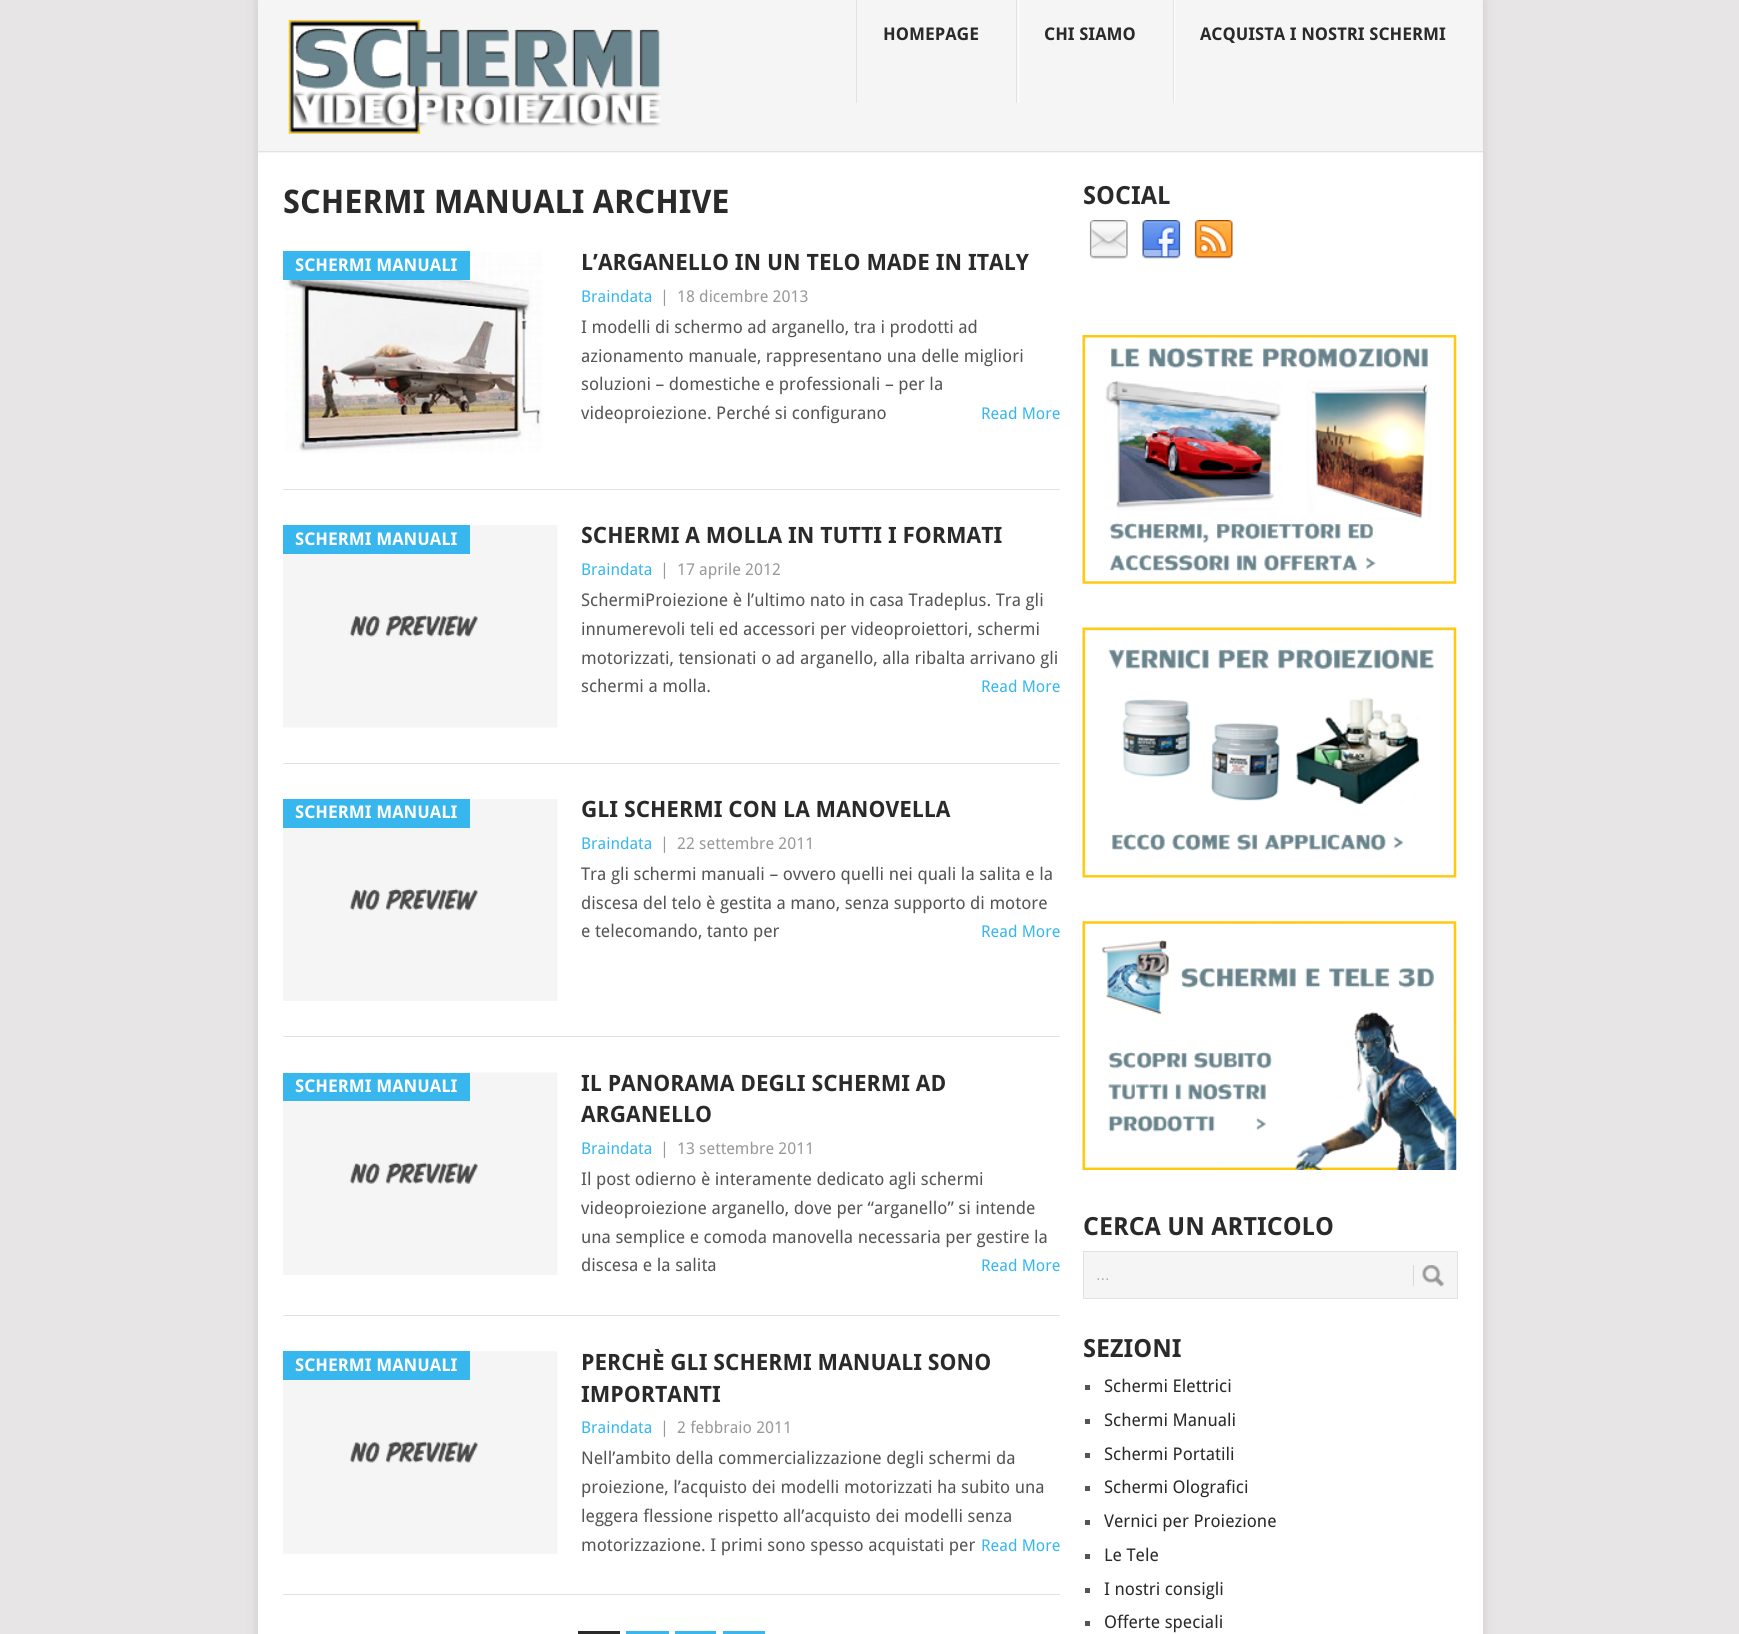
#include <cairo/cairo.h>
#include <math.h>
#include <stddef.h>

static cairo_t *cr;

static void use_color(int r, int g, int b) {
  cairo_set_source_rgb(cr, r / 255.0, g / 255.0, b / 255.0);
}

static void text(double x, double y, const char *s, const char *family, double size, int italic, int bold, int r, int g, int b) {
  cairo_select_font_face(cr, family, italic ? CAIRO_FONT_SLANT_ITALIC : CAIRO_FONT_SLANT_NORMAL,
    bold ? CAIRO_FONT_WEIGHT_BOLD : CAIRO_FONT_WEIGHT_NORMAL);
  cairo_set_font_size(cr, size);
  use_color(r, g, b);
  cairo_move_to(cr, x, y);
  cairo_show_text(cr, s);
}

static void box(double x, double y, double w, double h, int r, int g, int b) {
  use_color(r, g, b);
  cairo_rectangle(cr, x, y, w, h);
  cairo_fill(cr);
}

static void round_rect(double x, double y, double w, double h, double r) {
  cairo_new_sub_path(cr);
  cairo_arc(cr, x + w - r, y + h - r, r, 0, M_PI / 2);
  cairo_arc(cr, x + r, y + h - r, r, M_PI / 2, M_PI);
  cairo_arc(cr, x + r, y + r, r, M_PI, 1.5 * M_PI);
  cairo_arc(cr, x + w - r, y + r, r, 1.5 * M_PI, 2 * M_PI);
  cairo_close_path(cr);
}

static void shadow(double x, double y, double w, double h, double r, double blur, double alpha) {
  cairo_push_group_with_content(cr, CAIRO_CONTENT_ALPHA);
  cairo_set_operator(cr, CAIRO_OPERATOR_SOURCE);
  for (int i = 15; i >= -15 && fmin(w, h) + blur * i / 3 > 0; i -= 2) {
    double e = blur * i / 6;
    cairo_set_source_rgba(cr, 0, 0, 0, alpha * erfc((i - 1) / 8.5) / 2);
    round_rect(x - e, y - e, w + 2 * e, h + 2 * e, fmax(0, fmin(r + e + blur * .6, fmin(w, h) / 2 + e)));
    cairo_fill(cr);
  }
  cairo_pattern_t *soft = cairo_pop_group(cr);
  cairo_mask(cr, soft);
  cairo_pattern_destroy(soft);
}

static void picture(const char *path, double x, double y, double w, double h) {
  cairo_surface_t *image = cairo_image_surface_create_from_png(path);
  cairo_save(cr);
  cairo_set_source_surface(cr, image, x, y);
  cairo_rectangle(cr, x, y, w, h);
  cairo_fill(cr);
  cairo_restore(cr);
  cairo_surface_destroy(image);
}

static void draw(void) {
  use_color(231, 229, 230);
  cairo_paint(cr);
  use_color(50, 50, 50);
  shadow(258, 0, 1225, 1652, 0, 6, 0.17);
  box(258, 153, 1225, 1481, 255, 255, 255);
  box(258, 0, 1225, 153, 245, 245, 245);
  picture("img_01.png", 288, 19, 373, 115);
  box(1016, 0, 1, 103, 226, 226, 226);
  box(856, 0, 1, 103, 226, 226, 226);
  box(1173, 0, 1, 103, 226, 226, 226);
  box(1018, 0, 1, 103, 255, 255, 255);
  box(1174, 0, 1, 103, 255, 255, 255);
  box(258, 151, 1225, 1, 226, 226, 226);
  box(283, 489, 777, 1, 226, 226, 226);
  picture("img_02.png", 285, 252, 258, 201);
  box(283, 251, 187, 29, 56, 183, 238);
  box(283, 763, 777, 1, 226, 226, 226);
  picture("img_03.png", 283, 525, 275, 203);
  box(283, 525, 187, 29, 56, 183, 238);
  box(283, 1036, 777, 1, 226, 226, 226);
  picture("img_04.png", 283, 799, 275, 202);
  box(283, 799, 187, 29, 56, 183, 238);
  box(283, 1315, 777, 1, 226, 226, 226);
  picture("img_05.png", 283, 1072, 275, 203);
  box(283, 1073, 187, 28, 56, 183, 238);
  box(283, 1594, 777, 1, 226, 226, 226);
  picture("img_06.png", 283, 1351, 275, 203);
  box(283, 1351, 187, 29, 56, 183, 238);
  box(578, 1631, 42, 3, 42, 42, 42);
  box(626, 1631, 43, 3, 56, 183, 238);
  box(675, 1631, 41, 3, 56, 183, 238);
  box(723, 1631, 42, 3, 56, 183, 238);
  picture("img_07.png", 1089, 220, 39, 39);
  picture("img_08.png", 1142, 220, 39, 39);
  picture("img_09.png", 1194, 220, 39, 39);
  picture("img_10.png", 1082, 335, 375, 249);
  picture("img_11.png", 1082, 627, 375, 251);
  picture("img_12.png", 1082, 921, 375, 249);
  use_color(245, 245, 245);
  cairo_rectangle(cr, 1083.5, 1251.5, 374, 47);
  cairo_fill_preserve(cr);
  use_color(226, 226, 226);
  cairo_set_line_width(cr, 1);
  cairo_stroke(cr);
  picture("img_13.png", 1422, 1265, 22, 22);
  box(1413, 1265, 1, 21, 216, 216, 216);
  box(1085, 1385, 5, 5, 85, 85, 85);
  box(1085, 1419, 5, 5, 85, 85, 85);
  box(1085, 1453, 5, 5, 85, 85, 85);
  box(1085, 1486, 5, 5, 85, 85, 85);
  box(1085, 1520, 5, 5, 85, 85, 85);
  box(1085, 1554, 5, 5, 85, 85, 85);
  box(1085, 1588, 5, 5, 85, 85, 85);
  box(1085, 1621, 5, 5, 85, 85, 85);
  text(883, 40, "HOMEPAGE", "Droid Sans", 17.5, 0, 1, 42, 42, 42);
  text(1044, 40, "CHI SIAMO", "Droid Sans", 17.5, 0, 1, 42, 42, 42);
  text(1200, 40, "ACQUISTA I NOSTRI SCHERMI", "Droid Sans", 17.5, 0, 1, 42, 42, 42);
  text(283, 213, "SCHERMI MANUALI ARCHIVE", "Droid Sans", 32.5, 0, 1, 42, 42, 42);
  text(295, 271, "SCHERMI MANUALI", "Droid Sans", 17.5, 0, 1, 255, 255, 255);
  text(581, 270, "L’ARGANELLO IN UN TELO MADE IN ITALY", "Droid Sans", 22.5, 0, 1, 42, 42, 42);
  text(581, 302, "Braindata", "Droid Sans", 16.25, 0, 0, 56, 183, 238);
  text(660, 302, "|", "Droid Sans", 16.25, 0, 0, 153, 153, 153);
  text(677, 302, "18 dicembre 2013", "Droid Sans", 16.25, 0, 0, 153, 153, 153);
  text(581, 333, "I modelli di schermo ad arganello, tra i prodotti ad", "Droid Sans", 17.5, 0, 0, 85, 85, 85);
  text(581, 362, "azionamento manuale, rappresentano una delle migliori", "Droid Sans", 17.5, 0, 0, 85, 85, 85);
  text(581, 390, "soluzioni – domestiche e professionali – per la", "Droid Sans", 17.5, 0, 0, 85, 85, 85);
  text(581, 419, "videoproiezione. Perché si configurano", "Droid Sans", 17.5, 0, 0, 85, 85, 85);
  text(981, 419, "Read More", "Droid Sans", 16.25, 0, 0, 56, 183, 238);
  text(295, 545, "SCHERMI MANUALI", "Droid Sans", 17.5, 0, 1, 255, 255, 255);
  text(581, 543, "SCHERMI A MOLLA IN TUTTI I FORMATI", "Droid Sans", 22.5, 0, 1, 42, 42, 42);
  text(581, 575, "Braindata", "Droid Sans", 16.25, 0, 0, 56, 183, 238);
  text(660, 575, "|", "Droid Sans", 16.25, 0, 0, 153, 153, 153);
  text(677, 575, "17 aprile 2012", "Droid Sans", 16.25, 0, 0, 153, 153, 153);
  text(581, 606, "SchermiProiezione è l’ultimo nato in casa Tradeplus. Tra gli", "Droid Sans", 17.5, 0, 0, 85, 85, 85);
  text(581, 635, "innumerevoli teli ed accessori per videoproiettori, schermi", "Droid Sans", 17.5, 0, 0, 85, 85, 85);
  text(581, 664, "motorizzati, tensionati o ad arganello, alla ribalta arrivano gli", "Droid Sans", 17.5, 0, 0, 85, 85, 85);
  text(581, 692, "schermi a molla.", "Droid Sans", 17.5, 0, 0, 85, 85, 85);
  text(981, 692, "Read More", "Droid Sans", 16.25, 0, 0, 56, 183, 238);
  text(295, 818, "SCHERMI MANUALI", "Droid Sans", 17.5, 0, 1, 255, 255, 255);
  text(581, 817, "GLI SCHERMI CON LA MANOVELLA", "Droid Sans", 22.5, 0, 1, 42, 42, 42);
  text(581, 849, "Braindata", "Droid Sans", 16.25, 0, 0, 56, 183, 238);
  text(660, 849, "|", "Droid Sans", 16.25, 0, 0, 153, 153, 153);
  text(677, 849, "22 settembre 2011", "Droid Sans", 16.25, 0, 0, 153, 153, 153);
  text(581, 880, "Tra gli schermi manuali – ovvero quelli nei quali la salita e la", "Droid Sans", 17.5, 0, 0, 85, 85, 85);
  text(581, 909, "discesa del telo è gestita a mano, senza supporto di motore", "Droid Sans", 17.5, 0, 0, 85, 85, 85);
  text(581, 937, "e telecomando, tanto per", "Droid Sans", 17.5, 0, 0, 85, 85, 85);
  text(981, 937, "Read More", "Droid Sans", 16.25, 0, 0, 56, 183, 238);
  text(295, 1092, "SCHERMI MANUALI", "Droid Sans", 17.5, 0, 1, 255, 255, 255);
  text(581, 1091, "IL PANORAMA DEGLI SCHERMI AD", "Droid Sans", 22.5, 0, 1, 42, 42, 42);
  text(581, 1122, "ARGANELLO", "Droid Sans", 22.5, 0, 1, 42, 42, 42);
  text(581, 1154, "Braindata", "Droid Sans", 16.25, 0, 0, 56, 183, 238);
  text(660, 1154, "|", "Droid Sans", 16.25, 0, 0, 153, 153, 153);
  text(677, 1154, "13 settembre 2011", "Droid Sans", 16.25, 0, 0, 153, 153, 153);
  text(581, 1185, "Il post odierno è interamente dedicato agli schermi", "Droid Sans", 17.5, 0, 0, 85, 85, 85);
  text(581, 1214, "videoproiezione arganello, dove per “arganello” si intende", "Droid Sans", 17.5, 0, 0, 85, 85, 85);
  text(581, 1243, "una semplice e comoda manovella necessaria per gestire la", "Droid Sans", 17.5, 0, 0, 85, 85, 85);
  text(581, 1271, "discesa e la salita", "Droid Sans", 17.5, 0, 0, 85, 85, 85);
  text(981, 1271, "Read More", "Droid Sans", 16.25, 0, 0, 56, 183, 238);
  text(295, 1371, "SCHERMI MANUALI", "Droid Sans", 17.5, 0, 1, 255, 255, 255);
  text(581, 1370, "PERCHÈ GLI SCHERMI MANUALI SONO", "Droid Sans", 22.5, 0, 1, 42, 42, 42);
  text(581, 1402, "IMPORTANTI", "Droid Sans", 22.5, 0, 1, 42, 42, 42);
  text(581, 1433, "Braindata", "Droid Sans", 16.25, 0, 0, 56, 183, 238);
  text(660, 1433, "|", "Droid Sans", 16.25, 0, 0, 153, 153, 153);
  text(677, 1433, "2 febbraio 2011", "Droid Sans", 16.25, 0, 0, 153, 153, 153);
  text(581, 1464, "Nell’ambito della commercializzazione degli schermi da", "Droid Sans", 17.5, 0, 0, 85, 85, 85);
  text(581, 1493, "proiezione, l’acquisto dei modelli motorizzati ha subito una", "Droid Sans", 17.5, 0, 0, 85, 85, 85);
  text(581, 1522, "leggera flessione rispetto all’acquisto dei modelli senza", "Droid Sans", 17.5, 0, 0, 85, 85, 85);
  text(581, 1551, "motorizzazione. I primi sono spesso acquistati per", "Droid Sans", 17.5, 0, 0, 85, 85, 85);
  text(981, 1551, "Read More", "Droid Sans", 16.25, 0, 0, 56, 183, 238);
  text(1083, 204, "SOCIAL", "Droid Sans", 25, 0, 1, 42, 42, 42);
  text(1083, 1235, "CERCA UN ARTICOLO", "Droid Sans", 25, 0, 1, 42, 42, 42);
  text(1096, 1280, "...", "Liberation Sans", 16.25, 0, 0, 177, 177, 177);
  text(1083, 1357, "SEZIONI", "Droid Sans", 25, 0, 1, 42, 42, 42);
  text(1104, 1392, "Schermi Elettrici", "Droid Sans", 17.5, 0, 0, 42, 42, 42);
  text(1104, 1426, "Schermi Manuali", "Droid Sans", 17.5, 0, 0, 42, 42, 42);
  text(1104, 1460, "Schermi Portatili", "Droid Sans", 17.5, 0, 0, 42, 42, 42);
  text(1104, 1493, "Schermi Olografici", "Droid Sans", 17.5, 0, 0, 42, 42, 42);
  text(1104, 1527, "Vernici per Proiezione", "Droid Sans", 17.5, 0, 0, 42, 42, 42);
  text(1104, 1561, "Le Tele", "Droid Sans", 17.5, 0, 0, 42, 42, 42);
  text(1104, 1595, "I nostri consigli", "Droid Sans", 17.5, 0, 0, 42, 42, 42);
  text(1104, 1628, "Offerte speciali", "Droid Sans", 17.5, 0, 0, 42, 42, 42);
}

int main(void) {
  cairo_surface_t *surface = cairo_image_surface_create(CAIRO_FORMAT_RGB24, 1739, 1634);
  cr = cairo_create(surface);
  cairo_font_options_t *options = cairo_font_options_create();
  cairo_font_options_set_hint_metrics(options, CAIRO_HINT_METRICS_OFF);
  cairo_font_options_set_hint_style(options, CAIRO_HINT_STYLE_NONE);
  cairo_set_font_options(cr, options);
  cairo_set_miter_limit(cr, 4);
  draw();
  cairo_surface_write_to_png(surface, "out.png");
  cairo_font_options_destroy(options);
  cairo_destroy(cr);
  cairo_surface_destroy(surface);
  return 0;
}
